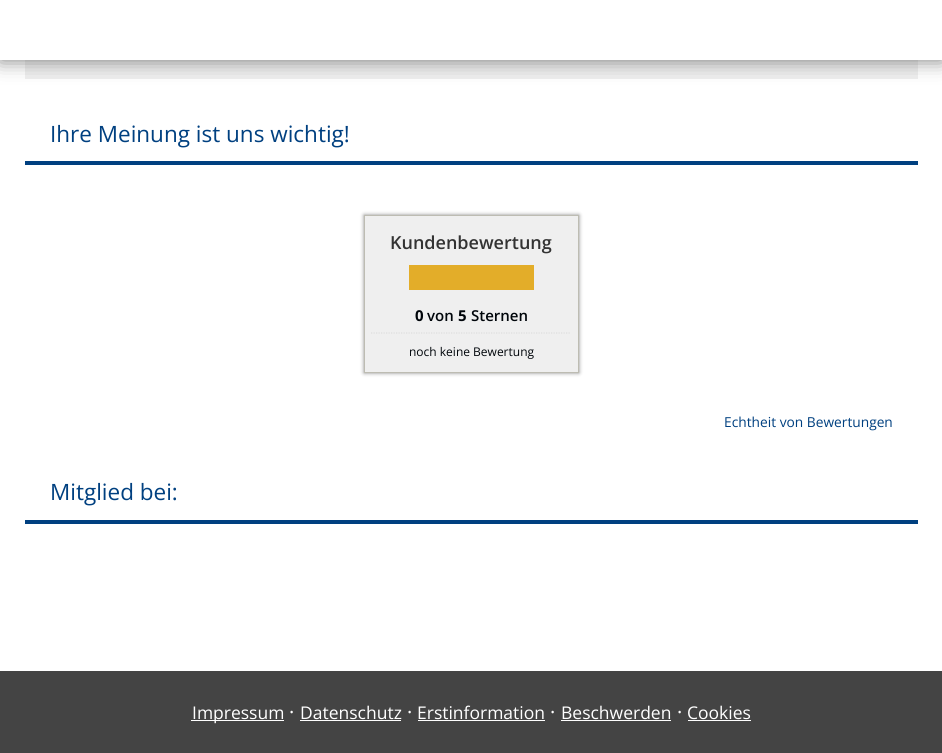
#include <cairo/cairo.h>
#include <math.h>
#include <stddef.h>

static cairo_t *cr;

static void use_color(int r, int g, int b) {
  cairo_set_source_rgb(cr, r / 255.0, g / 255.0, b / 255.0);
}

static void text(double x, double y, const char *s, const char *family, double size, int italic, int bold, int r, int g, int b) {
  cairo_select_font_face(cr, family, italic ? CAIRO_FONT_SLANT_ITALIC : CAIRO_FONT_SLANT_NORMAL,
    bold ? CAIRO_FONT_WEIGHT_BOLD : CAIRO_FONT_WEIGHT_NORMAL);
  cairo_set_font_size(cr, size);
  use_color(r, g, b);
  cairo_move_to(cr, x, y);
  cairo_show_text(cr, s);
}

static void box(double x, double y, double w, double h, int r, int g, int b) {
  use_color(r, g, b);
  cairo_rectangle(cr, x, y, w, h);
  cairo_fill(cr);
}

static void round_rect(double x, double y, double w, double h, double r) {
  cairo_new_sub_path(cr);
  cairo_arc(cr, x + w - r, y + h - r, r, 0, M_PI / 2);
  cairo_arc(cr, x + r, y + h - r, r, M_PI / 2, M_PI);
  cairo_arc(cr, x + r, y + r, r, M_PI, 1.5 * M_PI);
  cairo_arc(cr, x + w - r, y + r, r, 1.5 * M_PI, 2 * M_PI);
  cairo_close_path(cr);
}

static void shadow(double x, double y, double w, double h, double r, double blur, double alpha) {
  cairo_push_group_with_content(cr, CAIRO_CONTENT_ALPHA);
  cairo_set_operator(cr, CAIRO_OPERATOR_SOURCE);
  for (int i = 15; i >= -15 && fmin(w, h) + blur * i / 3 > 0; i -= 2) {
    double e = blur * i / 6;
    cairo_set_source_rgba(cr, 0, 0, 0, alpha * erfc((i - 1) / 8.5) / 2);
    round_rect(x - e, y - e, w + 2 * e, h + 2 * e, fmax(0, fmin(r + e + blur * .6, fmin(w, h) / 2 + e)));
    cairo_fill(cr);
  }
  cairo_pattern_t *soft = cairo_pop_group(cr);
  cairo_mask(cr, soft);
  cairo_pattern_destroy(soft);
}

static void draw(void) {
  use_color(255, 255, 255);
  cairo_paint(cr);
  box(25, 60, 893, 19, 239, 239, 239);
  use_color(89, 90, 89);
  shadow(0, 0, 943, 60, 0, 10, 0.8);
  box(0, 0, 942, 60, 255, 255, 255);
  box(25, 161, 893, 4, 0, 64, 128);
  use_color(136, 136, 136);
  shadow(364, 215, 215, 158, 0, 2, 1);
  use_color(239, 239, 239);
  cairo_rectangle(cr, 364.5, 215.5, 214, 157);
  cairo_fill_preserve(cr);
  use_color(189, 188, 178);
  cairo_set_line_width(cr, 1);
  cairo_stroke(cr);
  box(409, 265, 125, 25, 227, 173, 41);
  cairo_new_path(cr);
  cairo_move_to(cr, 371, 333);
  cairo_line_to(cr, 571, 333);
  use_color(221, 221, 221);
  cairo_set_line_width(cr, 1.2);
  cairo_set_dash(cr, (double[]){1.25, 1.25}, 2, 0);
  cairo_stroke(cr);
  box(25, 520, 893, 4, 0, 64, 128);
  box(0, 671, 942, 82, 68, 68, 68);
  box(191, 720, 93, 1, 255, 255, 255);
  box(300, 720, 101, 1, 255, 255, 255);
  box(418, 720, 127, 1, 255, 255, 255);
  box(561, 720, 110, 1, 255, 255, 255);
  box(688, 720, 63, 1, 255, 255, 255);
  text(50, 142, "Ihre Meinung ist uns wichtig!", "Open Sans", 22.5, 0, 0, 0, 64, 128);
  text(390, 249, "Kundenbewertung", "Open Sans SemiBold", 18, 0, 0, 51, 51, 51);
  text(415, 321, "0", "Open Sans", 15, 0, 1, 0, 5, 10);
  text(427, 321, "von", "Open Sans SemiBold", 15, 0, 0, 0, 5, 10);
  text(458, 321, "5", "Open Sans", 15, 0, 1, 0, 5, 10);
  text(471, 321, "Sternen", "Open Sans SemiBold", 15, 0, 0, 0, 5, 10);
  text(409, 356, "noch keine Bewertung", "Open Sans", 12, 0, 0, 0, 5, 10);
  text(724, 427, "Echtheit von Bewertungen", "Open Sans", 13.75, 0, 0, 0, 64, 128);
  text(50, 500, "Mitglied bei:", "Open Sans", 22.5, 0, 0, 0, 64, 128);
  text(192, 719, "Impressum", "Open Sans", 17.5, 0, 0, 255, 255, 255);
  text(289, 719, "·", "Open Sans", 20, 0, 0, 255, 255, 255);
  text(300, 719, "Datenschutz", "Open Sans", 17.5, 0, 0, 255, 255, 255);
  text(407, 719, "·", "Open Sans", 20, 0, 0, 255, 255, 255);
  text(417, 719, "Erstinformation", "Open Sans", 17.5, 0, 0, 255, 255, 255);
  text(550, 719, "·", "Open Sans", 20, 0, 0, 255, 255, 255);
  text(561, 719, "Beschwerden", "Open Sans", 17.5, 0, 0, 255, 255, 255);
  text(677, 719, "·", "Open Sans", 20, 0, 0, 255, 255, 255);
  text(687, 719, "Cookies", "Open Sans", 17.5, 0, 0, 255, 255, 255);
}

int main(void) {
  cairo_surface_t *surface = cairo_image_surface_create(CAIRO_FORMAT_RGB24, 942, 753);
  cr = cairo_create(surface);
  cairo_font_options_t *options = cairo_font_options_create();
  cairo_font_options_set_hint_metrics(options, CAIRO_HINT_METRICS_OFF);
  cairo_font_options_set_hint_style(options, CAIRO_HINT_STYLE_NONE);
  cairo_set_font_options(cr, options);
  cairo_set_miter_limit(cr, 4);
  draw();
  cairo_surface_write_to_png(surface, "out.png");
  cairo_font_options_destroy(options);
  cairo_destroy(cr);
  cairo_surface_destroy(surface);
  return 0;
}
